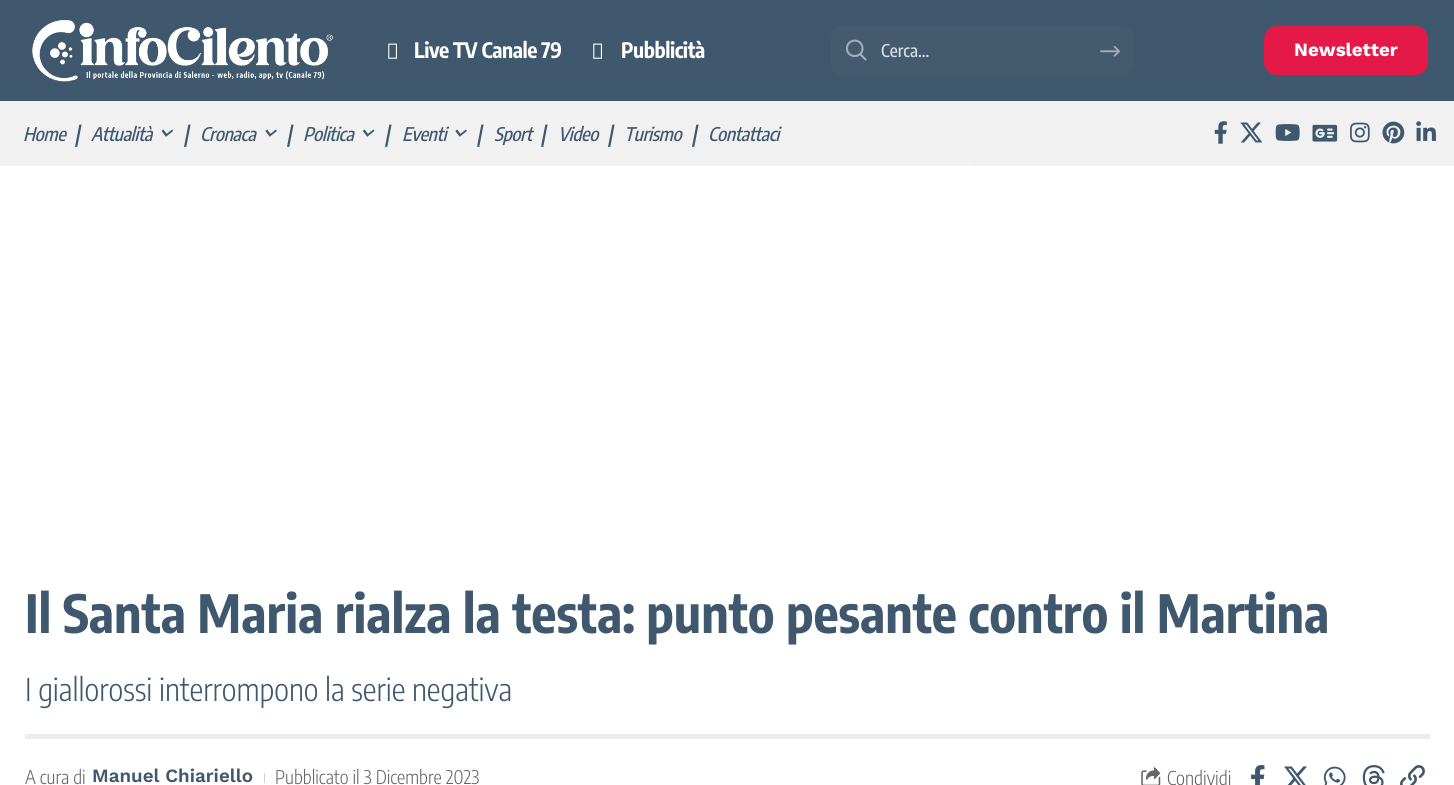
#include <cairo/cairo.h>
#include <math.h>
#include <stddef.h>

static cairo_t *cr;

static void use_color(int r, int g, int b) {
  cairo_set_source_rgb(cr, r / 255.0, g / 255.0, b / 255.0);
}

static void text(double x, double y, const char *s, const char *family, double size, int italic, int bold, int r, int g, int b) {
  cairo_select_font_face(cr, family, italic ? CAIRO_FONT_SLANT_ITALIC : CAIRO_FONT_SLANT_NORMAL,
    bold ? CAIRO_FONT_WEIGHT_BOLD : CAIRO_FONT_WEIGHT_NORMAL);
  cairo_set_font_size(cr, size);
  use_color(r, g, b);
  cairo_move_to(cr, x, y);
  cairo_show_text(cr, s);
}

static void spaced_text(double x, double y, const char *s, double letter, double word) {
  cairo_move_to(cr, x, y);
  while (*s) {
    char ch[5] = {0};
    int n = 0;
    do ch[n++] = *s++; while ((*s & 0xC0) == 0x80);
    cairo_show_text(cr, ch);
    cairo_rel_move_to(cr, letter + word * (*ch == ' '), 0);
  }
}

static void box(double x, double y, double w, double h, int r, int g, int b) {
  use_color(r, g, b);
  cairo_rectangle(cr, x, y, w, h);
  cairo_fill(cr);
}

static void round_rect(double x, double y, double w, double h, double r) {
  cairo_new_sub_path(cr);
  cairo_arc(cr, x + w - r, y + h - r, r, 0, M_PI / 2);
  cairo_arc(cr, x + r, y + h - r, r, M_PI / 2, M_PI);
  cairo_arc(cr, x + r, y + r, r, M_PI, 1.5 * M_PI);
  cairo_arc(cr, x + w - r, y + r, r, 1.5 * M_PI, 2 * M_PI);
  cairo_close_path(cr);
}

static void picture(const char *path, double x, double y, double w, double h) {
  cairo_surface_t *image = cairo_image_surface_create_from_png(path);
  cairo_save(cr);
  cairo_set_source_surface(cr, image, x, y);
  cairo_rectangle(cr, x, y, w, h);
  cairo_fill(cr);
  cairo_restore(cr);
  cairo_surface_destroy(image);
}

static void draw(void) {
  use_color(255, 255, 255);
  cairo_paint(cr);
  box(0, 0, 1454, 101, 63, 88, 109);
  picture("img_01.png", 32, 20, 301, 62);
  picture("img_02.png", 388, 43, 9, 16);
  picture("img_02.png", 593, 43, 9, 16);
  use_color(68, 91, 111);
  round_rect(831, 25, 302, 51, 13);
  cairo_fill(cr);
  cairo_new_path(cr);
  cairo_move_to(cr, 860, 54);
  cairo_line_to(cr, 865.5, 59.5);
  cairo_move_to(cr, 862.5, 48.5);
  cairo_curve_to(cr, 862.5, 58.5, 847, 58.5, 847, 48.5);
  cairo_curve_to(cr, 847, 38, 862.5, 38, 862.5, 48.5);
  cairo_close_path(cr);
  use_color(162, 173, 183);
  cairo_set_line_width(cr, 2.1);
  cairo_set_line_cap(cr, CAIRO_LINE_CAP_ROUND);
  cairo_set_line_join(cr, CAIRO_LINE_JOIN_ROUND);
  cairo_stroke(cr);
  picture("img_03.png", 1100, 45, 20, 12);
  use_color(229, 25, 71);
  round_rect(1264, 26, 164, 49, 13);
  cairo_fill(cr);
  use_color(241, 241, 241);
  cairo_new_path(cr);
  cairo_move_to(cr, 0, 101);
  cairo_line_to(cr, 970, 101);
  cairo_line_to(cr, 970, 163.5);
  cairo_curve_to(cr, 970, 165, 969, 166, 967.5, 166);
  cairo_line_to(cr, 0, 166);
  cairo_close_path(cr);
  cairo_fill(cr);
  picture("img_04.png", 161, 129, 13, 8);
  picture("img_05.png", 265, 129, 12, 8);
  picture("img_06.png", 362, 129, 13, 8);
  picture("img_05.png", 455, 129, 12, 8);
  cairo_new_path(cr);
  cairo_move_to(cr, 970, 101);
  cairo_line_to(cr, 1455, 101);
  cairo_line_to(cr, 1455, 163.5);
  cairo_curve_to(cr, 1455, 165, 1454, 166, 1452.5, 166);
  cairo_line_to(cr, 970, 166);
  cairo_close_path(cr);
  cairo_fill(cr);
  picture("img_07.png", 1214, 121, 13, 23);
  picture("img_08.png", 1240, 122, 23, 21);
  picture("img_09.png", 1275, 124, 25, 17);
  picture("img_10.png", 1312, 124, 26, 18);
  picture("img_11.png", 1350, 122, 20, 21);
  picture("img_12.png", 1382, 121, 23, 23);
  picture("img_13.png", 1416, 121, 20, 20);
  box(25, 734, 1405, 5, 237, 237, 237);
  box(264, 773, 1, 10, 209, 209, 209);
  picture("img_14.png", 1141, 767, 20, 18);
  picture("img_15.png", 1251, 765, 14, 20);
  picture("img_16.png", 1284, 766, 23, 19);
  picture("img_17.png", 1323, 766, 23, 19);
  picture("img_18.png", 1362, 765, 23, 20);
  picture("img_19.png", 1400, 765, 25, 20);
  cairo_select_font_face(cr, "Encode Sans Condensed", CAIRO_FONT_SLANT_NORMAL, CAIRO_FONT_WEIGHT_BOLD);
  cairo_set_font_size(cr, 21.25);
  use_color(255, 255, 255);
  spaced_text(414, 58, "Live TV Canale 79", -0.4, 0);
  spaced_text(621, 58, "Pubblicità", -0.4, 0);
  text(881, 57, "Cerca...", "Encode Sans Condensed Medium", 17.5, 0, 0, 218, 222, 226);
  text(1294, 56, "Newsletter", "Work Sans", 18.75, 0, 1, 255, 255, 255);
  cairo_select_font_face(cr, "Encode Sans Condensed Medium", CAIRO_FONT_SLANT_ITALIC, CAIRO_FONT_WEIGHT_NORMAL);
  use_color(63, 88, 109);
  spaced_text(23, 141, "Home", -0.4, 0);
  text(75, 144, "/", "Encode Sans Condensed Medium", 24, 0, 0, 63, 88, 109);
  cairo_select_font_face(cr, "Encode Sans Condensed Medium", CAIRO_FONT_SLANT_ITALIC, CAIRO_FONT_WEIGHT_NORMAL);
  cairo_set_font_size(cr, 18.75);
  spaced_text(91, 141, "Attualità", -0.4, 0);
  text(184, 144, "/", "Encode Sans Condensed Medium", 24, 0, 0, 63, 88, 109);
  cairo_select_font_face(cr, "Encode Sans Condensed Medium", CAIRO_FONT_SLANT_ITALIC, CAIRO_FONT_WEIGHT_NORMAL);
  cairo_set_font_size(cr, 18.75);
  spaced_text(200, 141, "Cronaca", -0.4, 0);
  text(287, 144, "/", "Encode Sans Condensed Medium", 24, 0, 0, 63, 88, 109);
  cairo_select_font_face(cr, "Encode Sans Condensed Medium", CAIRO_FONT_SLANT_ITALIC, CAIRO_FONT_WEIGHT_NORMAL);
  cairo_set_font_size(cr, 18.75);
  spaced_text(303, 141, "Politica", -0.4, 0);
  text(385, 144, "/", "Encode Sans Condensed Medium", 24, 0, 0, 63, 88, 109);
  cairo_select_font_face(cr, "Encode Sans Condensed Medium", CAIRO_FONT_SLANT_ITALIC, CAIRO_FONT_WEIGHT_NORMAL);
  cairo_set_font_size(cr, 18.75);
  spaced_text(402, 141, "Eventi", -0.4, 0);
  text(477, 144, "/", "Encode Sans Condensed Medium", 24, 0, 0, 63, 88, 109);
  cairo_select_font_face(cr, "Encode Sans Condensed Medium", CAIRO_FONT_SLANT_ITALIC, CAIRO_FONT_WEIGHT_NORMAL);
  cairo_set_font_size(cr, 18.75);
  spaced_text(494, 141, "Sport", -0.4, 0);
  text(541, 144, "/", "Encode Sans Condensed Medium", 24, 0, 0, 63, 88, 109);
  cairo_select_font_face(cr, "Encode Sans Condensed Medium", CAIRO_FONT_SLANT_ITALIC, CAIRO_FONT_WEIGHT_NORMAL);
  cairo_set_font_size(cr, 18.75);
  spaced_text(558, 141, "Video", -0.4, 0);
  text(608, 144, "/", "Encode Sans Condensed Medium", 24, 0, 0, 63, 88, 109);
  cairo_select_font_face(cr, "Encode Sans Condensed Medium", CAIRO_FONT_SLANT_ITALIC, CAIRO_FONT_WEIGHT_NORMAL);
  cairo_set_font_size(cr, 18.75);
  spaced_text(624, 141, "Turismo", -0.4, 0);
  text(692, 144, "/", "Encode Sans Condensed Medium", 24, 0, 0, 63, 88, 109);
  cairo_select_font_face(cr, "Encode Sans Condensed Medium", CAIRO_FONT_SLANT_ITALIC, CAIRO_FONT_WEIGHT_NORMAL);
  cairo_set_font_size(cr, 18.75);
  spaced_text(708, 141, "Contattaci", -0.4, 0);
  text(25, 633, "Il Santa Maria rialza la testa: punto pesante contro il Martina", "Encode Sans Condensed", 52.5, 0, 1, 63, 88, 109);
  text(25, 701, "I giallorossi interrompono la serie negativa", "Encode Sans Condensed Light", 31.25, 0, 0, 63, 88, 109);
  text(25, 784, "A cura di", "Encode Sans Condensed Light", 18.75, 0, 0, 102, 102, 102);
  text(92, 782, "Manuel Chiariello", "Work Sans SemiBold", 18.75, 0, 0, 63, 88, 109);
  text(275, 784, "Pubblicato il 3 Dicembre 2023", "Encode Sans Condensed Light", 18.75, 0, 0, 102, 102, 102);
  text(1167, 785, "Condividi", "Encode Sans Condensed Light", 19, 0, 0, 102, 102, 102);
}

int main(void) {
  cairo_surface_t *surface = cairo_image_surface_create(CAIRO_FORMAT_RGB24, 1454, 785);
  cr = cairo_create(surface);
  cairo_font_options_t *options = cairo_font_options_create();
  cairo_font_options_set_hint_metrics(options, CAIRO_HINT_METRICS_OFF);
  cairo_font_options_set_hint_style(options, CAIRO_HINT_STYLE_NONE);
  cairo_set_font_options(cr, options);
  cairo_set_miter_limit(cr, 4);
  draw();
  cairo_surface_write_to_png(surface, "out.png");
  cairo_font_options_destroy(options);
  cairo_destroy(cr);
  cairo_surface_destroy(surface);
  return 0;
}
